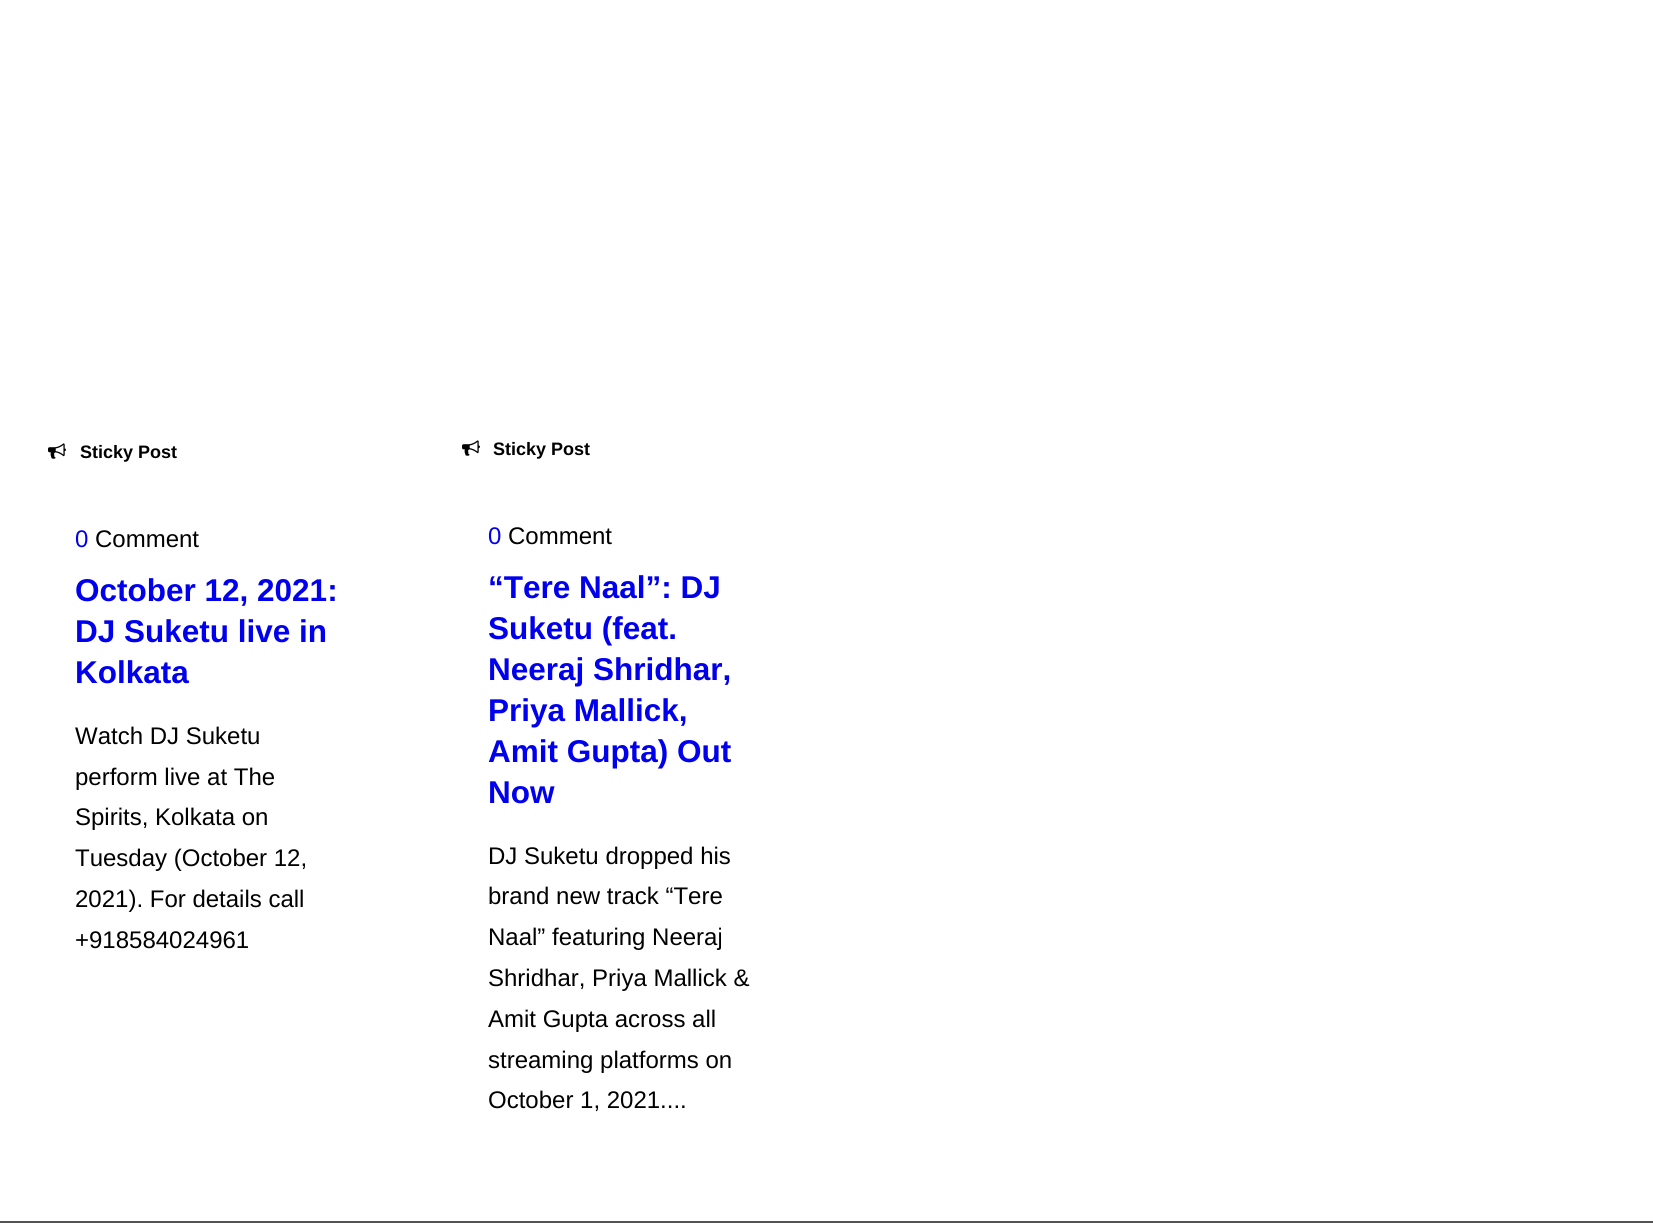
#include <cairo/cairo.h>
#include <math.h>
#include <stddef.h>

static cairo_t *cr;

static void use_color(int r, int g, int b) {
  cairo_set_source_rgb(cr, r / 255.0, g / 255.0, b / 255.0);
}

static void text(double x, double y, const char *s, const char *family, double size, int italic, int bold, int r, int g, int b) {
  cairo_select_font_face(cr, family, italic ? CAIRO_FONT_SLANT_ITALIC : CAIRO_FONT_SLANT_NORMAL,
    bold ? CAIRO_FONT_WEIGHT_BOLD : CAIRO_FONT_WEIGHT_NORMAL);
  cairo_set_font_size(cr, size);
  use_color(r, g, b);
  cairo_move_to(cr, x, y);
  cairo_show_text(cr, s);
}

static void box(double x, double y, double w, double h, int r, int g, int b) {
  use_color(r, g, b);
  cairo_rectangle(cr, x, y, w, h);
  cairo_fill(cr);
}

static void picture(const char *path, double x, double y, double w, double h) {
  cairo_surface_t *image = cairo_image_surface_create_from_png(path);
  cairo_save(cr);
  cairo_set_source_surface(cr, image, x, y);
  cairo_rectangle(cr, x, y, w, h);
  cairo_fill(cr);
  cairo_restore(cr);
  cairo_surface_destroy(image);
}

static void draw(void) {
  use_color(255, 255, 255);
  cairo_paint(cr);
  picture("img_01.png", 48, 443, 18, 16);
  picture("img_01.png", 462, 440, 18, 16);
  box(0, 1221, 1653, 2, 83, 83, 83);
  text(80, 458, "Sticky Post", "Liberation Sans", 18, 0, 1, 0, 0, 0);
  text(75, 547, "0", "Liberation Sans", 24, 0, 0, 0, 0, 238);
  text(95, 547, "Comment", "Liberation Sans", 24, 0, 0, 0, 0, 0);
  text(75, 601, "October 12, 2021:", "Liberation Sans", 31.5, 0, 1, 0, 0, 238);
  text(75, 642, "DJ Suketu live in", "Liberation Sans", 31.5, 0, 1, 0, 0, 238);
  text(75, 683, "Kolkata", "Liberation Sans", 31.5, 0, 1, 0, 0, 238);
  text(75, 744, "Watch DJ Suketu", "Liberation Sans", 24, 0, 0, 0, 0, 0);
  text(75, 785, "perform live at The", "Liberation Sans", 24, 0, 0, 0, 0, 0);
  text(75, 825, "Spirits, Kolkata on", "Liberation Sans", 24, 0, 0, 0, 0, 0);
  text(75, 866, "Tuesday (October 12,", "Liberation Sans", 24, 0, 0, 0, 0, 0);
  text(75, 907, "2021). For details call", "Liberation Sans", 24, 0, 0, 0, 0, 0);
  text(75, 948, "+918584024961", "Liberation Sans", 24, 0, 0, 0, 0, 0);
  text(493, 455, "Sticky Post", "Liberation Sans", 18, 0, 1, 0, 0, 0);
  text(488, 544, "0", "Liberation Sans", 24, 0, 0, 0, 0, 238);
  text(508, 544, "Comment", "Liberation Sans", 24, 0, 0, 0, 0, 0);
  text(488, 598, "“Tere Naal”: DJ", "Liberation Sans", 31.5, 0, 1, 0, 0, 238);
  text(488, 639, "Suketu (feat.", "Liberation Sans", 31.5, 0, 1, 0, 0, 238);
  text(488, 680, "Neeraj Shridhar,", "Liberation Sans", 31.5, 0, 1, 0, 0, 238);
  text(488, 721, "Priya Mallick,", "Liberation Sans", 31.5, 0, 1, 0, 0, 238);
  text(488, 762, "Amit Gupta) Out", "Liberation Sans", 31.5, 0, 1, 0, 0, 238);
  text(488, 803, "Now", "Liberation Sans", 31.5, 0, 1, 0, 0, 238);
  text(488, 864, "DJ Suketu dropped his", "Liberation Sans", 24, 0, 0, 0, 0, 0);
  text(488, 904, "brand new track “Tere", "Liberation Sans", 24, 0, 0, 0, 0, 0);
  text(488, 945, "Naal” featuring Neeraj", "Liberation Sans", 24, 0, 0, 0, 0, 0);
  text(488, 986, "Shridhar, Priya Mallick &", "Liberation Sans", 24, 0, 0, 0, 0, 0);
  text(488, 1027, "Amit Gupta across all", "Liberation Sans", 24, 0, 0, 0, 0, 0);
  text(488, 1068, "streaming platforms on", "Liberation Sans", 24, 0, 0, 0, 0, 0);
  text(488, 1108, "October 1, 2021....", "Liberation Sans", 24, 0, 0, 0, 0, 0);
}

int main(void) {
  cairo_surface_t *surface = cairo_image_surface_create(CAIRO_FORMAT_RGB24, 1653, 1223);
  cr = cairo_create(surface);
  cairo_font_options_t *options = cairo_font_options_create();
  cairo_font_options_set_hint_metrics(options, CAIRO_HINT_METRICS_OFF);
  cairo_font_options_set_hint_style(options, CAIRO_HINT_STYLE_NONE);
  cairo_set_font_options(cr, options);
  cairo_set_miter_limit(cr, 4);
  draw();
  cairo_surface_write_to_png(surface, "out.png");
  cairo_font_options_destroy(options);
  cairo_destroy(cr);
  cairo_surface_destroy(surface);
  return 0;
}
